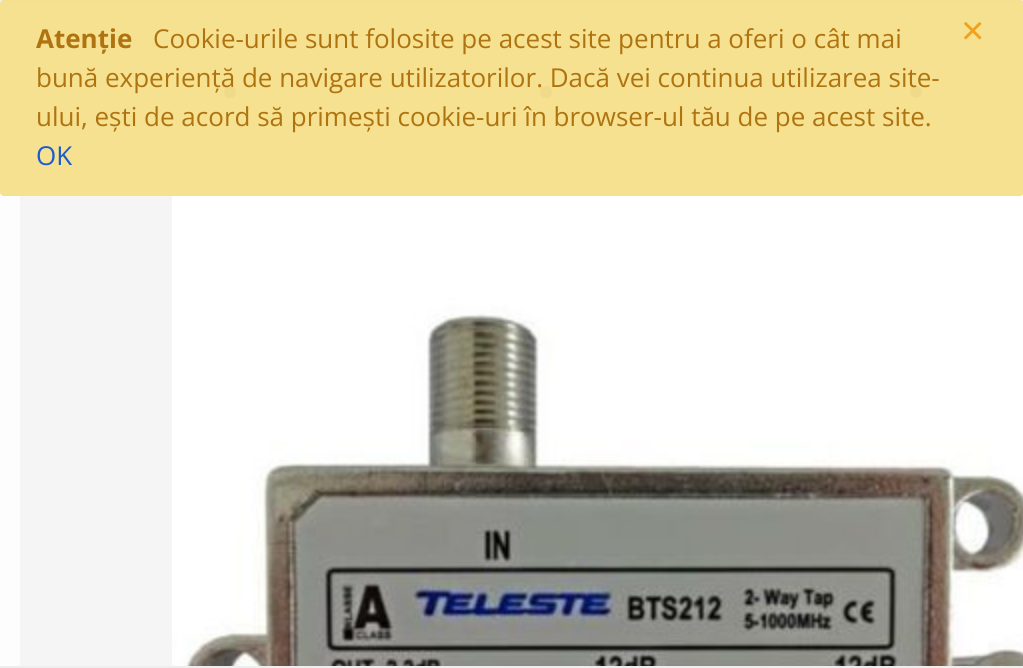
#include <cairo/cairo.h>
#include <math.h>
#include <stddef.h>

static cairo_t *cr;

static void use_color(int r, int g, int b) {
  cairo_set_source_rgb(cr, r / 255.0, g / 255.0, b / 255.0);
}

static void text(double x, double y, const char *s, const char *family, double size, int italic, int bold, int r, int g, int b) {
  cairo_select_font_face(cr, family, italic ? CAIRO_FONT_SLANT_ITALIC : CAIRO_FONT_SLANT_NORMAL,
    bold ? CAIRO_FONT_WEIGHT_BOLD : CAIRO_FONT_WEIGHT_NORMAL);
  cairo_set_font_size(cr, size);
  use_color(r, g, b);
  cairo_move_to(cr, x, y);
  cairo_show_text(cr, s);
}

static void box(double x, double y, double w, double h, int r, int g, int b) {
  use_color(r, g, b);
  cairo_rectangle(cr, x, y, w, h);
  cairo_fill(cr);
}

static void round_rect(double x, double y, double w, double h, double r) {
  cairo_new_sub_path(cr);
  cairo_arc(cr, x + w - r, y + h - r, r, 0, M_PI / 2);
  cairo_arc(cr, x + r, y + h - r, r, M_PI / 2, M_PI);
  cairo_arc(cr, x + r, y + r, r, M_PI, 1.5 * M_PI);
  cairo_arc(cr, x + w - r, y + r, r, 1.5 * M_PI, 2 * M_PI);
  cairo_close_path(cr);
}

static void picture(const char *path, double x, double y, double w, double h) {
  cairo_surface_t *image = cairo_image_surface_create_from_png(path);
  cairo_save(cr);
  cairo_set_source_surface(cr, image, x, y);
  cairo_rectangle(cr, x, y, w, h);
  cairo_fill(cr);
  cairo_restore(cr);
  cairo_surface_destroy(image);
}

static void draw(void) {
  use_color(238, 238, 238);
  cairo_paint(cr);
  box(0, 2, 1023, 42, 255, 255, 255);
  box(0, 134, 1023, 532, 253, 253, 253);
  box(0, 44, 1023, 90, 245, 245, 245);
  use_color(84, 84, 83);
  cairo_arc(cr, 230, 92, 6, 0, 2 * M_PI);
  cairo_fill(cr);
  cairo_arc(cr, 546, 92, 6, 0, 2 * M_PI);
  cairo_fill(cr);
  cairo_arc(cr, 916, 92, 6, 0, 2 * M_PI);
  cairo_fill(cr);
  box(20, 134, 984, 532, 245, 245, 245);
  picture("img_01.png", 172, 154, 851, 512);
  cairo_set_source_rgba(cr, 0.961, 0.878, 0.549, 0.96);
  round_rect(0, 0, 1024, 196, 4);
  cairo_fill(cr);
  text(36, 48, "Atenție", "Open Sans", 26, 0, 1, 175, 115, 16);
  text(153, 48, "Cookie-urile sunt folosite pe acest site pentru a oferi o cât mai", "Open Sans", 26, 0, 0, 175, 115, 16);
  text(961, 44, "×", "Liberation Sans", 40, 0, 0, 243, 160, 27);
  text(36, 87, "bună experiență de navigare utilizatorilor. Dacă vei continua utilizarea site-", "Open Sans", 26, 0, 0, 175, 115, 16);
  text(36, 126, "ului, ești de acord să primești cookie-uri în browser-ul tău de pe acest site.", "Open Sans", 26, 0, 0, 175, 115, 16);
  text(36, 165, "OK", "Open Sans", 26, 0, 0, 26, 91, 206);
}

int main(void) {
  cairo_surface_t *surface = cairo_image_surface_create(CAIRO_FORMAT_RGB24, 1023, 668);
  cr = cairo_create(surface);
  cairo_font_options_t *options = cairo_font_options_create();
  cairo_font_options_set_hint_metrics(options, CAIRO_HINT_METRICS_OFF);
  cairo_font_options_set_hint_style(options, CAIRO_HINT_STYLE_NONE);
  cairo_set_font_options(cr, options);
  cairo_set_miter_limit(cr, 4);
  draw();
  cairo_surface_write_to_png(surface, "out.png");
  cairo_font_options_destroy(options);
  cairo_destroy(cr);
  cairo_surface_destroy(surface);
  return 0;
}
